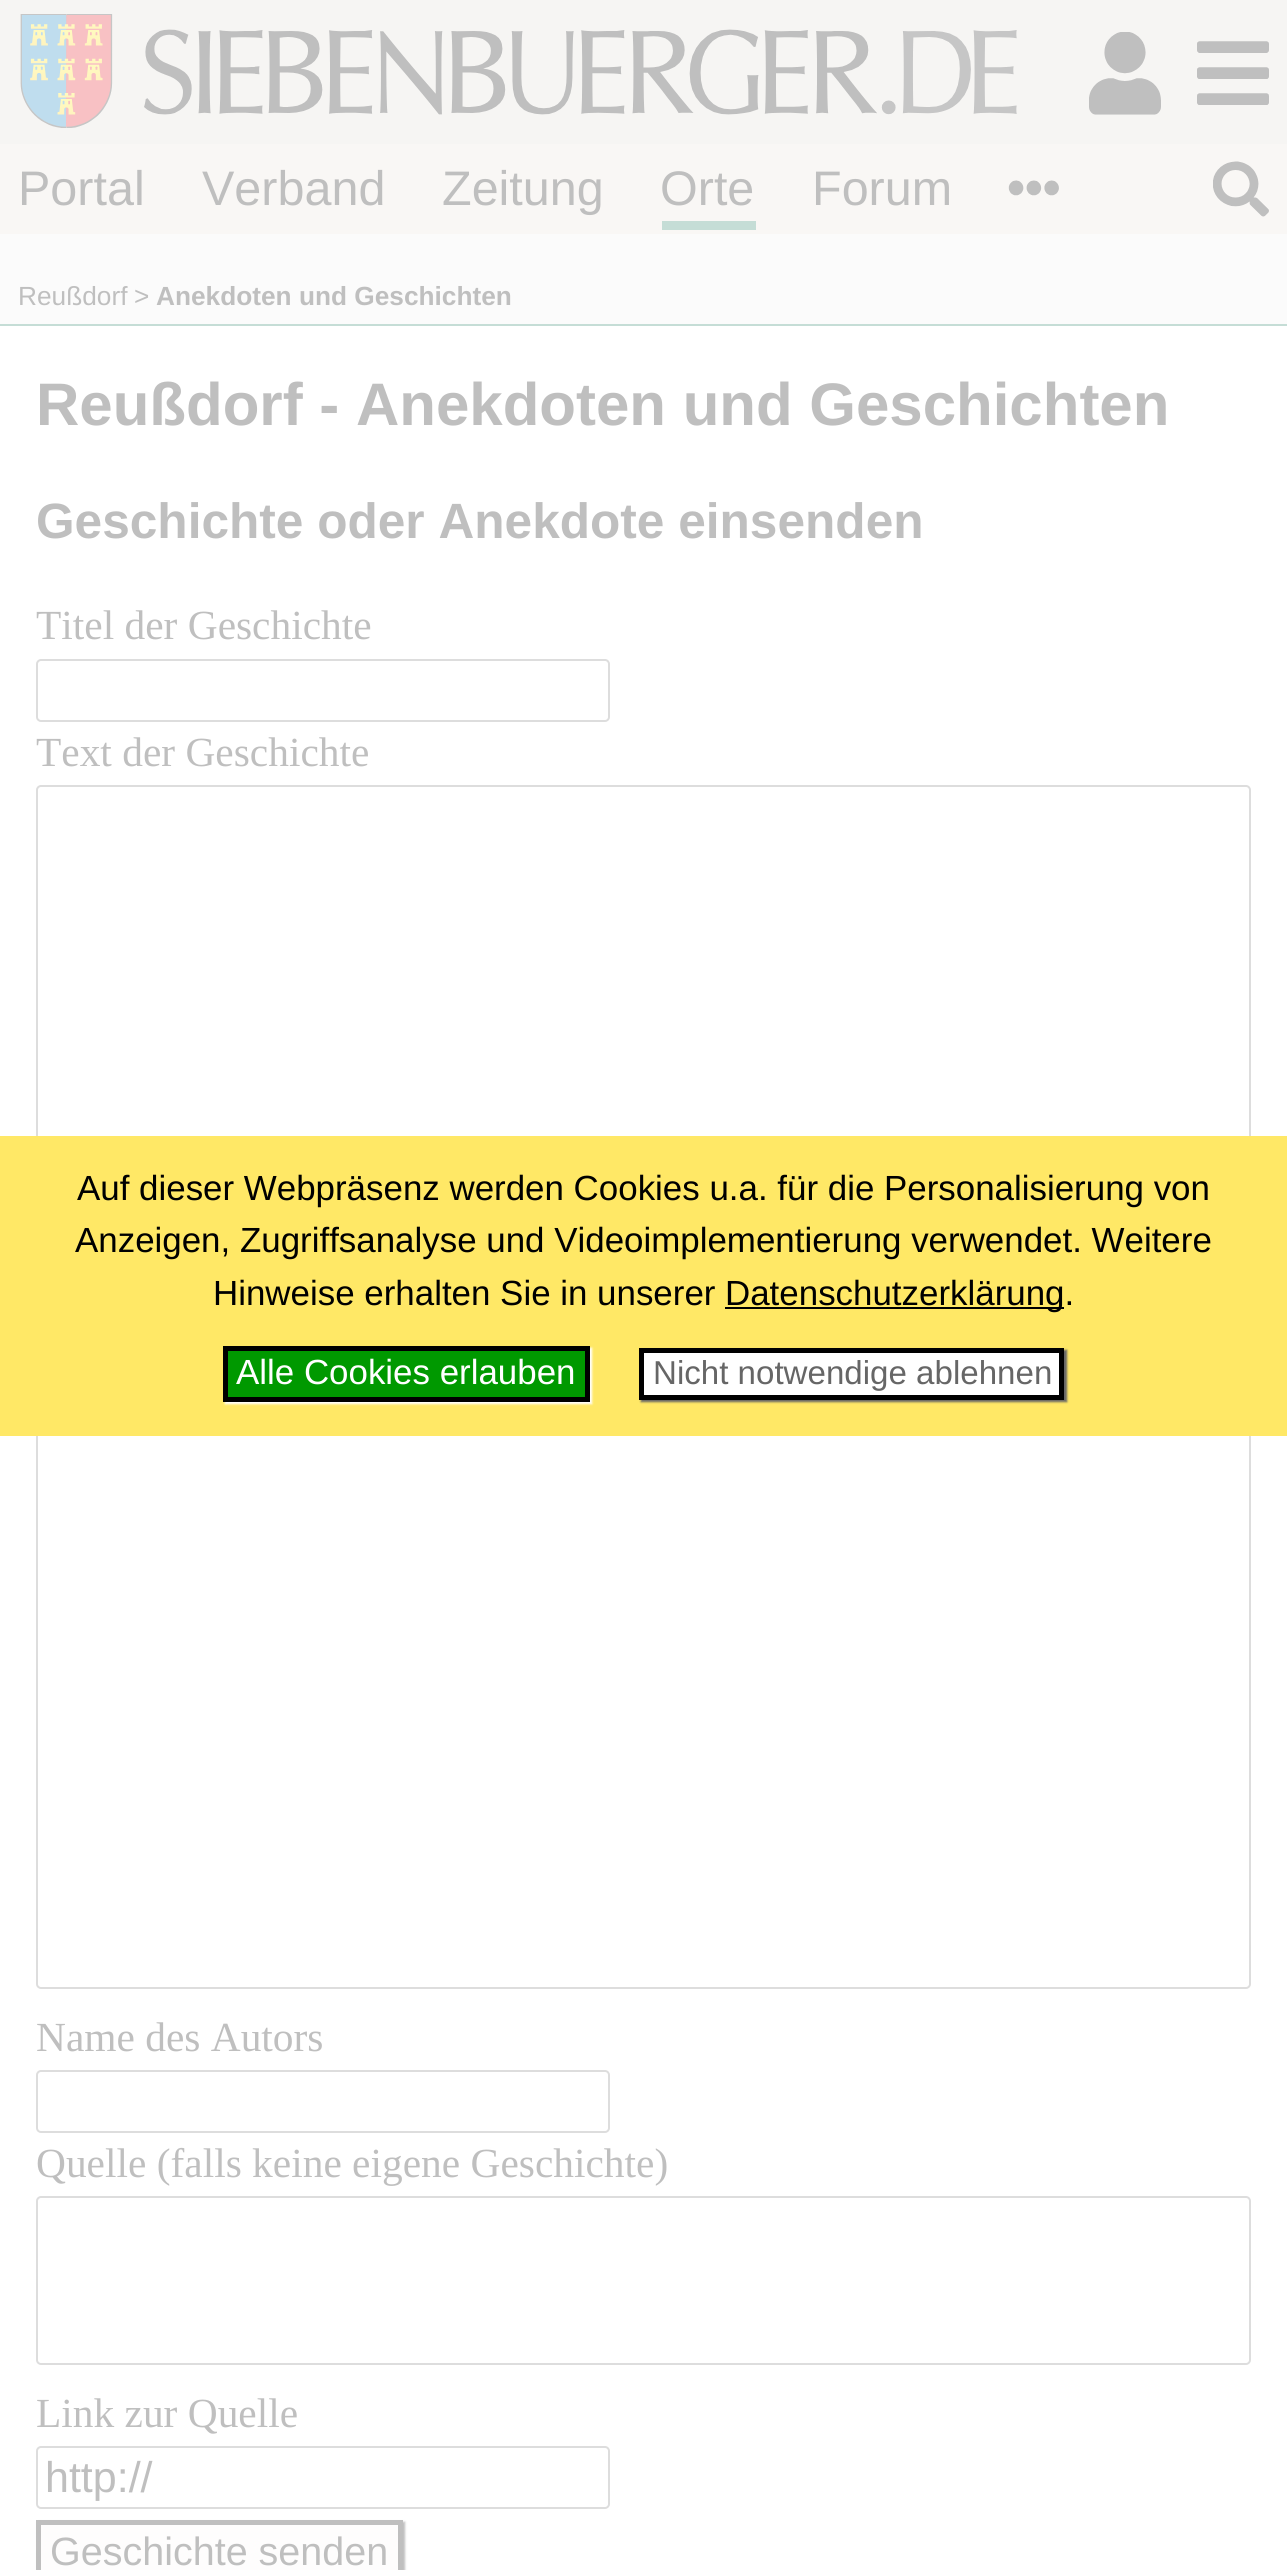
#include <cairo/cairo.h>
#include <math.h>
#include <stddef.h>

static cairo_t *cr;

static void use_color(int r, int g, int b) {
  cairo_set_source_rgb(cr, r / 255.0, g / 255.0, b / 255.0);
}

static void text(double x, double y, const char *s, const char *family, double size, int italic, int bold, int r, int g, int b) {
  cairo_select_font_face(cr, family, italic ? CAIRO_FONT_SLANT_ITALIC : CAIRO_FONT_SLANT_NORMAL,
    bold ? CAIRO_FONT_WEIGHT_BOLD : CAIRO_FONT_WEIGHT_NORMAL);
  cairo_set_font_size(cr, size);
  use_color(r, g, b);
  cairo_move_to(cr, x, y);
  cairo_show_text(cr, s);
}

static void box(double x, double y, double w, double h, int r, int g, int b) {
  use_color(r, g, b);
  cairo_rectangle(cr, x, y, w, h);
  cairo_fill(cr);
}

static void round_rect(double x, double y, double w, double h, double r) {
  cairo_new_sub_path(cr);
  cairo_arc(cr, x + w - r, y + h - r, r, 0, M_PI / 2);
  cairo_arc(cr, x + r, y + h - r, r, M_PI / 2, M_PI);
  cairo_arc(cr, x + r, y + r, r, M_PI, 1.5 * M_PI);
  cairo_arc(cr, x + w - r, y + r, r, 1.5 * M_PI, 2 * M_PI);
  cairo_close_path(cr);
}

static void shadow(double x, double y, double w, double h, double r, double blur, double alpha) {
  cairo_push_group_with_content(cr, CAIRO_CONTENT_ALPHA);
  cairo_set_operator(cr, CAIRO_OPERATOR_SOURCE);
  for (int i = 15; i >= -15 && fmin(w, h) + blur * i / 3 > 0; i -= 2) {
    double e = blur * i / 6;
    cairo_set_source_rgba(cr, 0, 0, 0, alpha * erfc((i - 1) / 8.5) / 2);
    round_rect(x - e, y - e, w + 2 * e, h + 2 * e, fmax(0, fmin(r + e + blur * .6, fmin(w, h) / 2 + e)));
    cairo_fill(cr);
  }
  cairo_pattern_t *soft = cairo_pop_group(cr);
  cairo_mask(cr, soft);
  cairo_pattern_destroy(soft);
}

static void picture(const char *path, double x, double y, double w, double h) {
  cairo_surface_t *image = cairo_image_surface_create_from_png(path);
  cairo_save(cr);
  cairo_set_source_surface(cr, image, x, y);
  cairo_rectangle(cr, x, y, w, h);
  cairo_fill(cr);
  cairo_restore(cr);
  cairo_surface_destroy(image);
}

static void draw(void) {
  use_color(255, 255, 255);
  cairo_paint(cr);
  box(0, 0, 1287, 144, 246, 245, 243);
  picture("img_01.png", 1197, 41, 72, 64);
  picture("img_02.png", 20, 14, 93, 114);
  picture("img_03.png", 144, 29, 873, 86);
  picture("img_04.png", 1089, 32, 72, 83);
  box(0, 144, 1287, 90, 249, 247, 245);
  box(662, 221, 94, 9, 197, 221, 214);
  picture("img_05.png", 1008, 180, 51, 16);
  picture("img_06.png", 1213, 161, 56, 56);
  box(0, 234, 1287, 90, 251, 251, 251);
  box(0, 324, 1287, 2, 197, 221, 214);
  round_rect(37, 660, 572, 61, 4);
  use_color(221, 221, 221);
  cairo_stroke(cr);
  round_rect(37, 786, 1213, 1202, 4);
  cairo_stroke(cr);
  round_rect(37, 2071, 572, 61, 4);
  cairo_stroke(cr);
  round_rect(37, 2197, 1213, 167, 4);
  cairo_stroke(cr);
  round_rect(37, 2447, 572, 61, 4);
  cairo_stroke(cr);
  use_color(191, 191, 191);
  shadow(38, 2522, 367, 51, 0, 1, 1);
  use_color(254, 253, 253);
  cairo_rectangle(cr, 38.5, 2522.5, 362, 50);
  cairo_fill_preserve(cr);
  use_color(191, 191, 191);
  cairo_set_line_width(cr, 5);
  cairo_stroke(cr);
  box(0, 1136, 1287, 300, 255, 232, 102);
  box(725, 1307, 339, 2, 0, 0, 0);
  use_color(255, 255, 255);
  shadow(225, 1348, 367, 56, 0, 1, 1);
  use_color(0, 153, 0);
  cairo_rectangle(cr, 225.5, 1348.5, 362, 51);
  cairo_fill_preserve(cr);
  use_color(0, 0, 0);
  cairo_stroke(cr);
  use_color(102, 102, 102);
  shadow(641, 1350, 426, 52, 0, 1, 1);
  use_color(255, 255, 255);
  cairo_rectangle(cr, 641.5, 1350.5, 420, 47);
  cairo_fill_preserve(cr);
  use_color(0, 0, 0);
  cairo_stroke(cr);
  text(18, 205, "Portal", "Liberation Sans", 48.5, 0, 0, 191, 191, 191);
  text(202, 205, "Verband", "Liberation Sans", 48.5, 0, 0, 191, 191, 191);
  text(442, 205, "Zeitung", "Liberation Sans", 48.5, 0, 0, 191, 191, 191);
  text(660, 205, "Orte", "Liberation Sans", 48.5, 0, 0, 191, 191, 191);
  text(812, 205, "Forum", "Liberation Sans", 48.5, 0, 0, 191, 191, 191);
  text(18, 305, "Reußdorf", "Liberation Sans", 26.25, 0, 0, 191, 191, 191);
  text(134, 305, ">", "Liberation Sans", 26.25, 0, 0, 191, 191, 191);
  text(156, 305, "Anekdoten und Geschichten", "Liberation Sans", 26.25, 0, 1, 191, 191, 191);
  text(36, 425, "Reußdorf - Anekdoten und Geschichten", "Liberation Sans", 60, 0, 1, 191, 191, 191);
  text(36, 538, "Geschichte oder Anekdote einsenden", "Liberation Sans", 49.6, 0, 1, 191, 191, 191);
  text(36, 639, "Titel der Geschichte", "Liberation Serif", 41.4, 0, 0, 191, 191, 191);
  text(36, 766, "Text der Geschichte", "Liberation Serif", 41.4, 0, 0, 191, 191, 191);
  text(36, 2051, "Name des Autors", "Liberation Serif", 41.4, 0, 0, 191, 191, 191);
  text(36, 2177, "Quelle (falls keine eigene Geschichte)", "Liberation Serif", 41.4, 0, 0, 191, 191, 191);
  text(36, 2427, "Link zur Quelle", "Liberation Serif", 41.4, 0, 0, 191, 191, 191);
  text(45, 2492, "http://", "Liberation Sans", 43, 0, 0, 191, 191, 191);
  text(50, 2565, "Geschichte senden", "Liberation Sans", 39.5, 0, 0, 191, 191, 191);
  text(77, 1200, "Auf dieser Webpräsenz werden Cookies u.a. für die Personalisierung von", "Liberation Sans", 34.9, 0, 0, 0, 0, 0);
  text(75, 1252, "Anzeigen, Zugriffsanalyse und Videoimplementierung verwendet. Weitere", "Liberation Sans", 34.9, 0, 0, 0, 0, 0);
  text(213, 1305, "Hinweise erhalten Sie in unserer", "Liberation Sans", 34.9, 0, 0, 0, 0, 0);
  text(725, 1305, "Datenschutzerklärung.", "Liberation Sans", 34.9, 0, 0, 0, 0, 0);
  text(236, 1384, "Alle Cookies erlauben", "Liberation Sans", 34.9, 0, 0, 255, 255, 255);
  text(653, 1384, "Nicht notwendige ablehnen", "Liberation Sans", 33.1, 0, 0, 102, 102, 102);
}

int main(void) {
  cairo_surface_t *surface = cairo_image_surface_create(CAIRO_FORMAT_RGB24, 1287, 2570);
  cr = cairo_create(surface);
  cairo_font_options_t *options = cairo_font_options_create();
  cairo_font_options_set_hint_metrics(options, CAIRO_HINT_METRICS_OFF);
  cairo_font_options_set_hint_style(options, CAIRO_HINT_STYLE_NONE);
  cairo_set_font_options(cr, options);
  cairo_set_miter_limit(cr, 4);
  draw();
  cairo_surface_write_to_png(surface, "out.png");
  cairo_font_options_destroy(options);
  cairo_destroy(cr);
  cairo_surface_destroy(surface);
  return 0;
}
